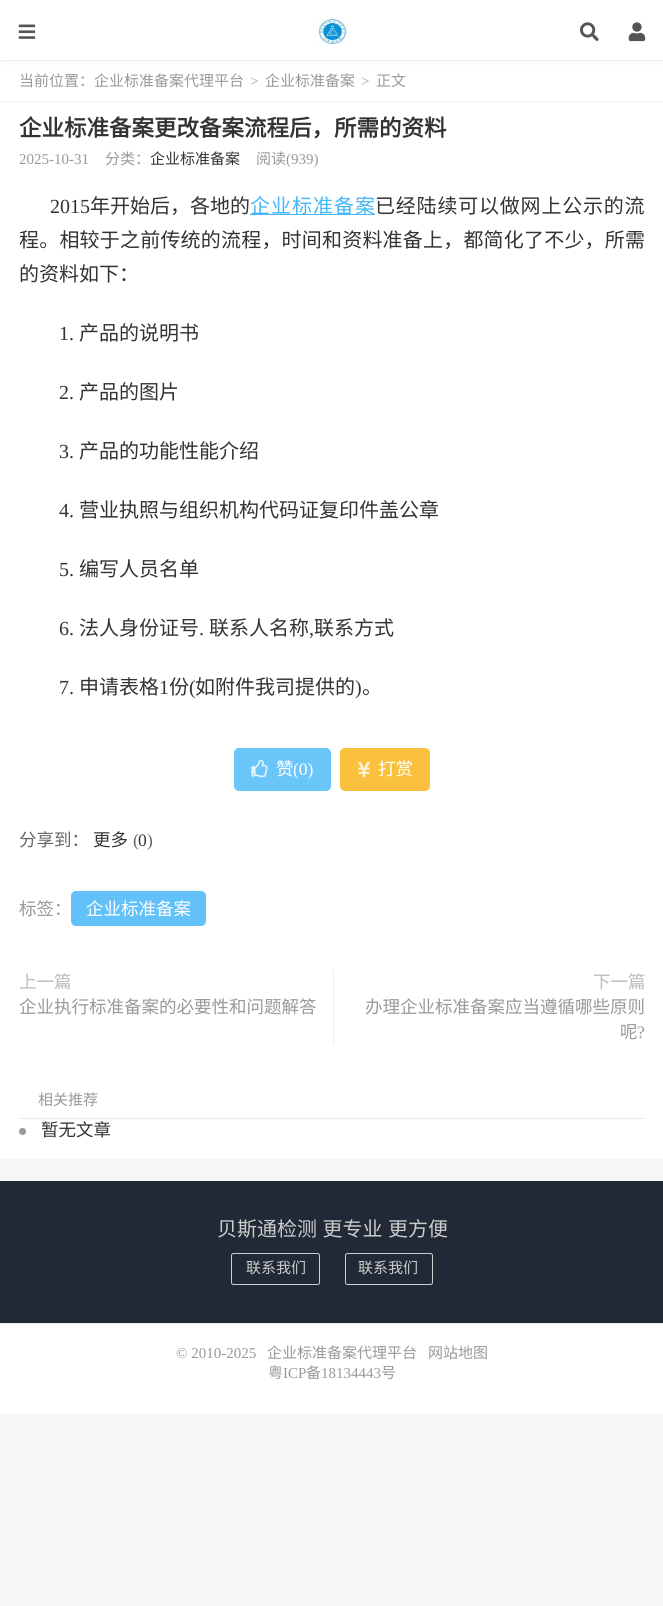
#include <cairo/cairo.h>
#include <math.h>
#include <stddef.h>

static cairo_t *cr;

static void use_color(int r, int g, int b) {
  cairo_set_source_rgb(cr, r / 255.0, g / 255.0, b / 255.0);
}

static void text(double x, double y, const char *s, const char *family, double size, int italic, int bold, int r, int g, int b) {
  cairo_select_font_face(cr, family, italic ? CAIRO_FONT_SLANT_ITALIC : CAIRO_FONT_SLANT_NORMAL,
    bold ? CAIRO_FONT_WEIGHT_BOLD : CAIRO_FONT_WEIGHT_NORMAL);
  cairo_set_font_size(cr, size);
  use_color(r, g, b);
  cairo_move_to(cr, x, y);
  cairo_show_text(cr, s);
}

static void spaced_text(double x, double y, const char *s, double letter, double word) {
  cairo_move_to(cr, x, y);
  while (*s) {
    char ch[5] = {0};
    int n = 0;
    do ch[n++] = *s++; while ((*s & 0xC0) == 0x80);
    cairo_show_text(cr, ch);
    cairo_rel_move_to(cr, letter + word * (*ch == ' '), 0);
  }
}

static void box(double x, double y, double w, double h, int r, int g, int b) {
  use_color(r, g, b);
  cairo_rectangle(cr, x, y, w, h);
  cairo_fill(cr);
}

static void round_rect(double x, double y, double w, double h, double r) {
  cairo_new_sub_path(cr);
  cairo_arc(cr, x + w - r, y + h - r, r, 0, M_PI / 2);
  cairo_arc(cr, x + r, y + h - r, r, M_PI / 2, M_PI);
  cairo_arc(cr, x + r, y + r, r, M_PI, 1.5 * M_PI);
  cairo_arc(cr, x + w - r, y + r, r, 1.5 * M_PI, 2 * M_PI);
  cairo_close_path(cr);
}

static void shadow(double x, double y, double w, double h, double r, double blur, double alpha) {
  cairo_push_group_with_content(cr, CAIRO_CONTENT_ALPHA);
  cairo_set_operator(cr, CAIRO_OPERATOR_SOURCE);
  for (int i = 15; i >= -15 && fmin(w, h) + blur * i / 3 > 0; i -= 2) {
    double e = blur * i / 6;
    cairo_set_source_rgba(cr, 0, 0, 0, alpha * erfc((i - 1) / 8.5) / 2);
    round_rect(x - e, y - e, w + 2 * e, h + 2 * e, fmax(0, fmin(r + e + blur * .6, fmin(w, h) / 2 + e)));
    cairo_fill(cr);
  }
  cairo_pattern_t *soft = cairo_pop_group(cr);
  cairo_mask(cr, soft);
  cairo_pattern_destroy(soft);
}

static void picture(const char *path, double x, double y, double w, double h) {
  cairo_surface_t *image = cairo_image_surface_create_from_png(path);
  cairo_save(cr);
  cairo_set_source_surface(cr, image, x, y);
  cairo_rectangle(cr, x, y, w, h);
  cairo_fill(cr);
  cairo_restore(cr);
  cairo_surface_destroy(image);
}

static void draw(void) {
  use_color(246, 246, 246);
  cairo_paint(cr);
  box(0, 61, 663, 40, 255, 255, 255);
  use_color(0, 0, 0);
  shadow(0, 1, 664, 60, 0, 3, 0.05);
  box(0, 0, 663, 60, 255, 255, 255);
  picture("img_01.png", 18, 24, 18, 15);
  picture("img_02.png", 318, 18, 32, 26);
  picture("img_03.png", 580, 22, 19, 19);
  picture("img_04.png", 628, 22, 18, 20);
  box(0, 103, 663, 1056, 255, 255, 255);
  box(250, 214, 125, 1, 69, 182, 247);
  use_color(106, 197, 249);
  round_rect(234, 748, 97, 43, 5);
  cairo_fill(cr);
  picture("img_05.png", 251, 759, 17, 19);
  use_color(249, 193, 61);
  round_rect(340, 748, 90, 43, 5);
  cairo_fill(cr);
  picture("img_06.png", 358, 762, 12, 16);
  use_color(97, 193, 248);
  round_rect(71, 891, 135, 35, 5);
  cairo_fill(cr);
  box(333, 970, 1, 75, 238, 238, 238);
  box(19, 1118, 626, 1, 234, 234, 234);
  use_color(153, 153, 153);
  cairo_arc(cr, 22.5, 1131.5, 3.5, 0, 2 * M_PI);
  cairo_fill(cr);
  box(0, 1181, 663, 142, 32, 41, 53);
  round_rect(231.5, 1253.5, 88, 31, 2);
  use_color(204, 204, 204);
  cairo_set_line_width(cr, 1);
  cairo_stroke(cr);
  round_rect(345.5, 1253.5, 87, 31, 2);
  cairo_stroke(cr);
  box(0, 1324, 663, 90, 255, 255, 255);
  box(0, 1323, 663, 1, 234, 234, 234);
  text(19, 86, "当前位置：企业标准备案代理平台", "Noto Sans CJK SC", 15, 0, 0, 153, 153, 153);
  text(250, 86, ">", "Liberation Serif", 15, 0, 1, 187, 187, 187);
  text(265, 86, "企业标准备案", "Noto Sans CJK SC", 15, 0, 0, 153, 153, 153);
  text(361, 86, ">", "Liberation Serif", 15, 0, 1, 187, 187, 187);
  text(376, 86, "正文", "Noto Sans CJK SC", 15, 0, 0, 153, 153, 153);
  text(19, 136, "企业标准备案更改备案流程后，所需的资料", "Noto Sans CJK SC", 22.5, 0, 1, 51, 51, 51);
  text(19, 164, "2025-10-31", "Liberation Serif", 15, 0, 0, 153, 153, 153);
  text(105, 164, "分类：", "Noto Sans CJK SC", 15, 0, 0, 153, 153, 153);
  text(150, 164, "企业标准备案", "Noto Sans CJK SC", 15, 0, 0, 51, 51, 51);
  text(256, 164, "阅读", "Noto Sans CJK SC", 15, 0, 0, 153, 153, 153);
  text(286, 164, "(939)", "Liberation Serif", 15, 0, 0, 153, 153, 153);
  text(50, 213, "2015", "Liberation Serif", 20, 0, 0, 51, 51, 51);
  text(90, 213, "年开始后，各地的", "Noto Sans CJK SC", 20, 0, 0, 51, 51, 51);
  use_color(69, 182, 247);
  spaced_text(250, 213, "企业标准备案", 1, 0);
  use_color(51, 51, 51);
  spaced_text(375, 213, "已经陆续可以做网上公示的流", 0.8, 0);
  spaced_text(19, 247, "程。相较于之前传统的流程，时间和资料准备上，都简化了不少，所需", 0.2, 0);
  text(19, 281, "的资料如下：", "Noto Sans CJK SC", 20, 0, 0, 51, 51, 51);
  text(59, 340, "1.", "Liberation Serif", 20, 0, 0, 51, 51, 51);
  text(79, 340, "产品的说明书", "Noto Sans CJK SC", 20, 0, 0, 51, 51, 51);
  text(59, 399, "2.", "Liberation Serif", 20, 0, 0, 51, 51, 51);
  text(79, 399, "产品的图片", "Noto Sans CJK SC", 20, 0, 0, 51, 51, 51);
  text(59, 458, "3.", "Liberation Serif", 20, 0, 0, 51, 51, 51);
  text(79, 458, "产品的功能性能介绍", "Noto Sans CJK SC", 20, 0, 0, 51, 51, 51);
  text(59, 517, "4.", "Liberation Serif", 20, 0, 0, 51, 51, 51);
  text(79, 517, "营业执照与组织机构代码证复印件盖公章", "Noto Sans CJK SC", 20, 0, 0, 51, 51, 51);
  text(59, 576, "5.", "Liberation Serif", 20, 0, 0, 51, 51, 51);
  text(79, 576, "编写人员名单", "Noto Sans CJK SC", 20, 0, 0, 51, 51, 51);
  text(59, 635, "6.", "Liberation Serif", 20, 0, 0, 51, 51, 51);
  text(79, 635, "法人身份证号", "Noto Sans CJK SC", 20, 0, 0, 51, 51, 51);
  text(199, 635, ".", "Liberation Serif", 20, 0, 0, 51, 51, 51);
  text(209, 635, "联系人名称", "Noto Sans CJK SC", 20, 0, 0, 51, 51, 51);
  text(309, 635, ",", "Liberation Serif", 20, 0, 0, 51, 51, 51);
  text(314, 635, "联系方式", "Noto Sans CJK SC", 20, 0, 0, 51, 51, 51);
  text(59, 694, "7.", "Liberation Serif", 20, 0, 0, 51, 51, 51);
  text(79, 694, "申请表格", "Noto Sans CJK SC", 20, 0, 0, 51, 51, 51);
  text(159, 694, "1", "Liberation Serif", 20, 0, 0, 51, 51, 51);
  text(169, 694, "份", "Noto Sans CJK SC", 20, 0, 0, 51, 51, 51);
  text(189, 694, "(", "Liberation Serif", 20, 0, 0, 51, 51, 51);
  text(195, 694, "如附件我司提供的", "Noto Sans CJK SC", 20, 0, 0, 51, 51, 51);
  text(355, 694, ")", "Liberation Serif", 20, 0, 0, 51, 51, 51);
  text(362, 694, "。", "Noto Sans CJK SC", 20, 0, 0, 51, 51, 51);
  text(276, 775, "赞", "Noto Sans CJK SC", 17.5, 0, 0, 255, 255, 255);
  text(293, 775, "(0)", "Liberation Serif", 17.5, 0, 0, 255, 255, 255);
  text(378, 775, "打赏", "Noto Sans CJK SC", 17.5, 0, 0, 255, 255, 255);
  text(19, 846, "分享到：", "Noto Sans CJK SC", 17.5, 0, 0, 102, 102, 102);
  text(93, 846, "更多", "Noto Sans CJK SC", 17.5, 0, 0, 51, 51, 51);
  text(133, 846, "(", "Liberation Serif", 17.5, 0, 0, 102, 102, 102);
  text(138, 846, "0", "Liberation Serif", 17.5, 0, 0, 51, 51, 51);
  text(147, 846, ")", "Liberation Serif", 17.5, 0, 0, 102, 102, 102);
  text(19, 915, "标签：", "Noto Sans CJK SC", 17.5, 0, 0, 153, 153, 153);
  text(86, 915, "企业标准备案", "Noto Sans CJK SC", 17.5, 0, 0, 255, 255, 255);
  text(19, 988, "上一篇", "Noto Sans CJK SC", 17.5, 0, 0, 187, 187, 187);
  text(19, 1013, "企业执行标准备案的必要性和问题解答", "Noto Sans CJK SC", 17.5, 0, 0, 153, 153, 153);
  text(593, 988, "下一篇", "Noto Sans CJK SC", 17.5, 0, 0, 187, 187, 187);
  text(365, 1013, "办理企业标准备案应当遵循哪些原则", "Noto Sans CJK SC", 17.5, 0, 0, 153, 153, 153);
  text(620, 1038, "呢", "Noto Sans CJK SC", 17.5, 0, 0, 153, 153, 153);
  text(637, 1038, "?", "Liberation Serif", 17.5, 0, 0, 153, 153, 153);
  text(38, 1105, "相关推荐", "Noto Sans CJK SC", 15, 0, 0, 153, 153, 153);
  text(41, 1136, "暂无文章", "Noto Sans CJK SC", 17.5, 0, 0, 51, 51, 51);
  cairo_set_font_size(cr, 20);
  use_color(204, 204, 204);
  spaced_text(217, 1236, "贝斯通检测 更专业 更方便", 0, 1);
  text(246, 1273, "联系我们", "Noto Sans CJK SC", 15, 0, 0, 204, 204, 204);
  text(358, 1273, "联系我们", "Noto Sans CJK SC", 15, 0, 0, 204, 204, 204);
  text(176, 1358, "© 2010-2025", "Liberation Serif", 15, 0, 0, 153, 153, 153);
  text(267, 1358, "企业标准备案代理平台", "Noto Sans CJK SC", 15, 0, 0, 153, 153, 153);
  text(428, 1358, "网站地图", "Noto Sans CJK SC", 15, 0, 0, 153, 153, 153);
  text(268, 1378, "粤", "Noto Sans CJK SC", 15, 0, 0, 153, 153, 153);
  text(283, 1378, "ICP", "Liberation Serif", 15, 0, 0, 153, 153, 153);
  text(306, 1378, "备", "Noto Sans CJK SC", 15, 0, 0, 153, 153, 153);
  text(321, 1378, "18134443", "Liberation Serif", 15, 0, 0, 153, 153, 153);
  text(381, 1378, "号", "Noto Sans CJK SC", 15, 0, 0, 153, 153, 153);
}

int main(void) {
  cairo_surface_t *surface = cairo_image_surface_create(CAIRO_FORMAT_RGB24, 663, 1606);
  cr = cairo_create(surface);
  cairo_font_options_t *options = cairo_font_options_create();
  cairo_font_options_set_hint_metrics(options, CAIRO_HINT_METRICS_OFF);
  cairo_font_options_set_hint_style(options, CAIRO_HINT_STYLE_NONE);
  cairo_set_font_options(cr, options);
  cairo_set_miter_limit(cr, 4);
  draw();
  cairo_surface_write_to_png(surface, "out.png");
  cairo_font_options_destroy(options);
  cairo_destroy(cr);
  cairo_surface_destroy(surface);
  return 0;
}
